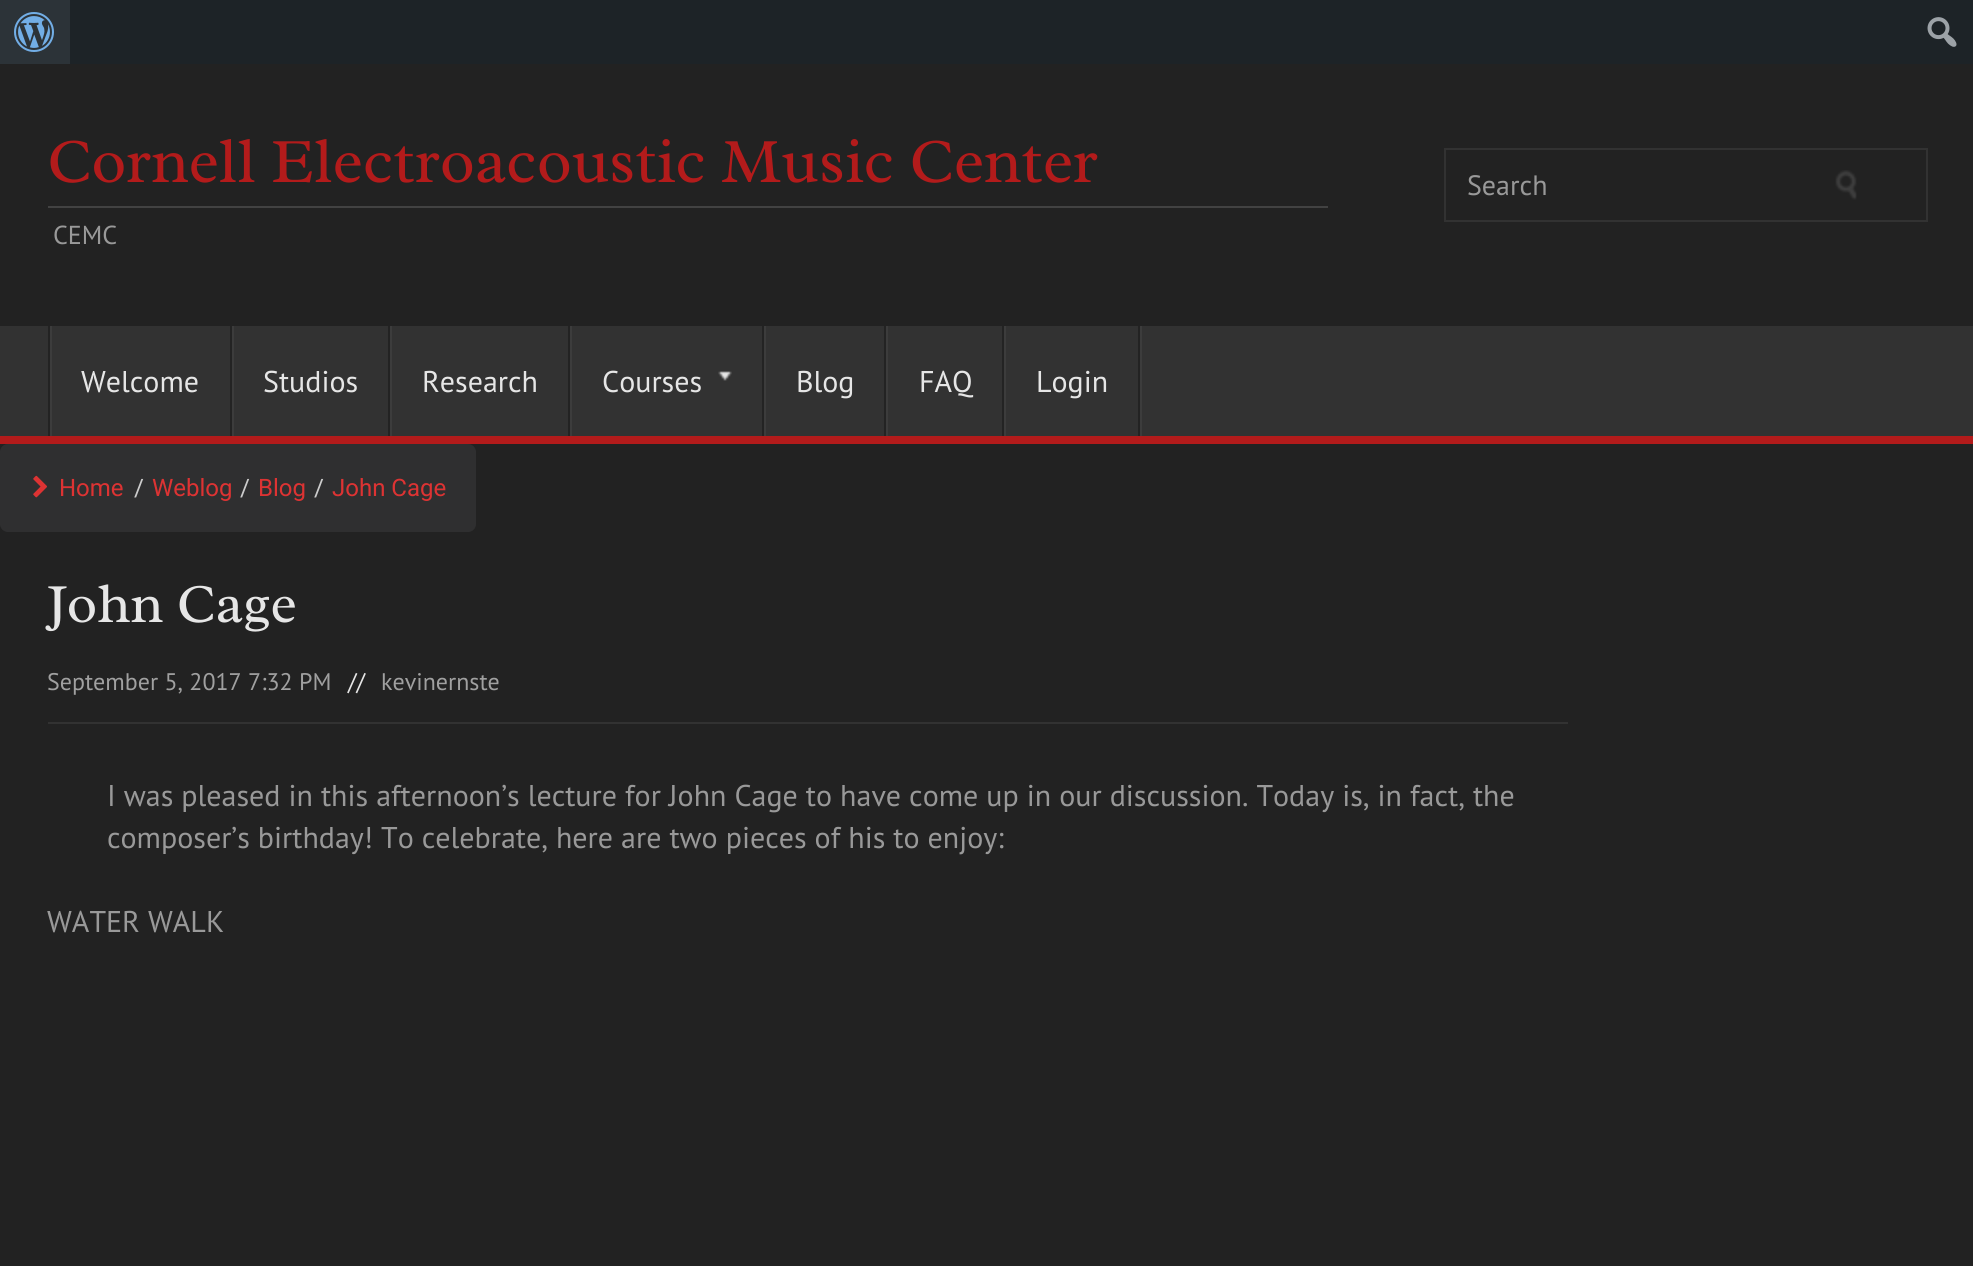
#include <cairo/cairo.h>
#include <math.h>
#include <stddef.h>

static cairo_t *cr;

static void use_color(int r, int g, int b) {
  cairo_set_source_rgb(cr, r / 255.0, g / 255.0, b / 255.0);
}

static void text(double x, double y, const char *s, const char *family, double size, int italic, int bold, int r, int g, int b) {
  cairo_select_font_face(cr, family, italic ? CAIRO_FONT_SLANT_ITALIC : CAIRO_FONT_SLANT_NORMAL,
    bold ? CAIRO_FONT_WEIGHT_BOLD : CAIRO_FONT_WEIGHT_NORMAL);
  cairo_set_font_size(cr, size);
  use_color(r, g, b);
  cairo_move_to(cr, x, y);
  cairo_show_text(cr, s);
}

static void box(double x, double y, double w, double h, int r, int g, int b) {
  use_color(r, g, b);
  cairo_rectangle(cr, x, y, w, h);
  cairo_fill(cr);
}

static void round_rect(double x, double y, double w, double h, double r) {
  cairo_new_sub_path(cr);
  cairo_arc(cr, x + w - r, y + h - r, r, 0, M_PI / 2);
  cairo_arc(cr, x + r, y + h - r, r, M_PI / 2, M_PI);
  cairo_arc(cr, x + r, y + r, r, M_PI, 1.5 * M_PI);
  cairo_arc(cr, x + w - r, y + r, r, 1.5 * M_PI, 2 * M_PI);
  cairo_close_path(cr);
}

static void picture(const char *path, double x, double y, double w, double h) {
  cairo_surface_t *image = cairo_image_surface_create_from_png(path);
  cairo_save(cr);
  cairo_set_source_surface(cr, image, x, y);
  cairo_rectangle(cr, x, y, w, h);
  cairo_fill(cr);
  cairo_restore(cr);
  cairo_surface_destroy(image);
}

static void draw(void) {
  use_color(34, 34, 34);
  cairo_paint(cr);
  box(70, 0, 1903, 64, 29, 35, 39);
  box(0, 0, 70, 64, 44, 51, 56);
  picture("img_01.png", 14, 12, 40, 40);
  picture("img_02.png", 1927, 17, 30, 30);
  box(48, 206, 1280, 2, 66, 66, 66);
  cairo_rectangle(cr, 1445, 149, 482, 72);
  use_color(50, 50, 50);
  cairo_stroke(cr);
  picture("img_03.png", 1835, 170, 22, 30);
  box(0, 326, 1973, 110, 50, 50, 50);
  box(0, 436, 1973, 8, 179, 27, 27);
  box(48, 326, 2, 110, 35, 35, 35);
  box(230, 326, 2, 110, 35, 35, 35);
  box(50, 326, 2, 110, 60, 60, 60);
  box(388, 326, 2, 110, 35, 35, 35);
  box(232, 326, 2, 110, 60, 60, 60);
  box(568, 326, 2, 110, 35, 35, 35);
  box(390, 326, 2, 110, 60, 60, 60);
  box(762, 326, 2, 110, 35, 35, 35);
  box(570, 326, 2, 110, 60, 60, 60);
  picture("img_04.png", 718, 371, 14, 10);
  box(884, 326, 2, 110, 35, 35, 35);
  box(764, 326, 2, 110, 60, 60, 60);
  box(1002, 326, 2, 110, 35, 35, 35);
  box(886, 326, 2, 110, 60, 60, 60);
  box(1138, 326, 2, 110, 35, 35, 35);
  box(1004, 326, 2, 110, 60, 60, 60);
  box(1140, 326, 2, 110, 60, 60, 60);
  use_color(47, 47, 48);
  round_rect(0, 444, 476, 88, 8);
  cairo_fill(cr);
  picture("img_05.png", 33, 475, 14, 23);
  box(48, 722, 1520, 2, 50, 50, 50);
  text(47, 182, "Cornell Electroacoustic Music Center", "Radley", 64, 0, 0, 179, 27, 27);
  text(53, 244, "CEMC", "PT Sans", 26, 0, 0, 153, 153, 153);
  text(1467, 195, "Search", "PT Sans", 28, 0, 0, 153, 153, 153);
  text(81, 392, "Welcome", "PT Sans", 30, 0, 0, 230, 230, 230);
  text(263, 392, "Studios", "PT Sans", 30, 0, 0, 230, 230, 230);
  text(422, 392, "Research", "PT Sans", 30, 0, 0, 230, 230, 230);
  text(602, 392, "Courses", "PT Sans", 30, 0, 0, 230, 230, 230);
  text(796, 392, "Blog", "PT Sans", 30, 0, 0, 230, 230, 230);
  text(919, 392, "FAQ", "PT Sans", 30, 0, 0, 230, 230, 230);
  text(1036, 392, "Login", "PT Sans", 30, 0, 0, 230, 230, 230);
  text(59, 496, "Home", "Roboto", 24, 0, 0, 221, 51, 51);
  text(134, 496, "/", "Roboto", 24, 0, 0, 204, 204, 204);
  text(152, 496, "Weblog", "Roboto", 24, 0, 0, 221, 51, 51);
  text(240, 496, "/", "Roboto", 24, 0, 0, 204, 204, 204);
  text(258, 496, "Blog", "Roboto", 24, 0, 0, 221, 51, 51);
  text(314, 496, "/", "Roboto", 24, 0, 0, 204, 204, 204);
  text(332, 496, "John Cage", "Roboto", 24, 0, 0, 221, 51, 51);
  text(47, 622, "John Cage", "Radley", 56, 0, 0, 230, 230, 230);
  text(47, 690, "September 5, 2017 7:32 PM", "PT Sans", 24, 0, 0, 160, 160, 160);
  text(348, 690, "//", "PT Sans", 24, 0, 0, 230, 230, 230);
  text(381, 690, "kevinernste", "PT Sans", 24, 0, 0, 160, 160, 160);
  text(107, 806, "I was pleased in this afternoon’s lecture for John Cage to have come up in our discussion. Today is, in fact, the", "PT Sans", 30, 0, 0, 153, 153, 153);
  text(107, 848, "composer’s birthday! To celebrate, here are two pieces of his to enjoy:", "PT Sans", 30, 0, 0, 153, 153, 153);
  text(47, 932, "WATER WALK", "PT Sans", 30, 0, 0, 153, 153, 153);
}

int main(void) {
  cairo_surface_t *surface = cairo_image_surface_create(CAIRO_FORMAT_RGB24, 1973, 1266);
  cr = cairo_create(surface);
  cairo_font_options_t *options = cairo_font_options_create();
  cairo_font_options_set_hint_metrics(options, CAIRO_HINT_METRICS_OFF);
  cairo_font_options_set_hint_style(options, CAIRO_HINT_STYLE_NONE);
  cairo_set_font_options(cr, options);
  cairo_set_miter_limit(cr, 4);
  draw();
  cairo_surface_write_to_png(surface, "out.png");
  cairo_font_options_destroy(options);
  cairo_destroy(cr);
  cairo_surface_destroy(surface);
  return 0;
}
